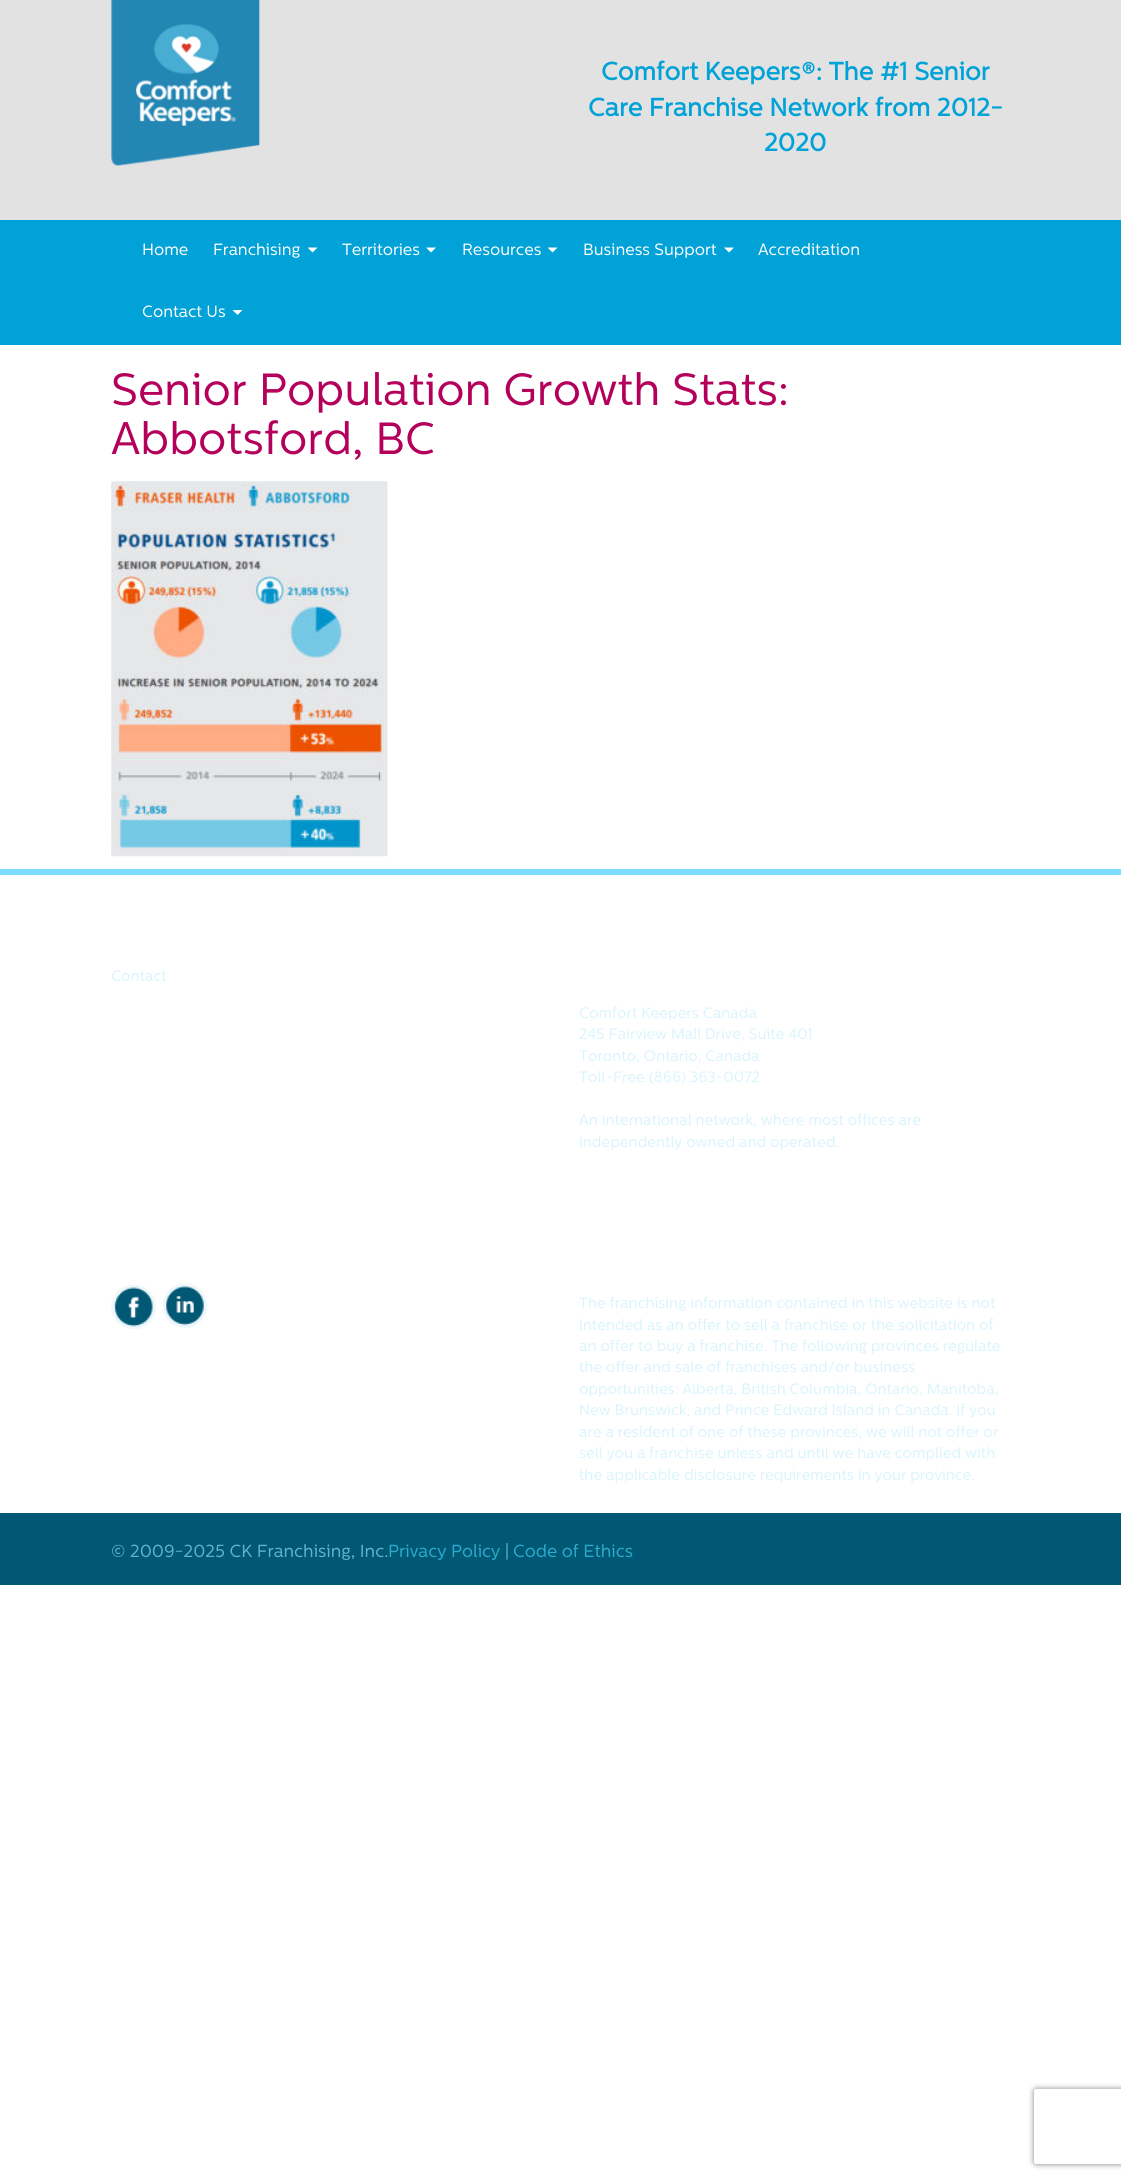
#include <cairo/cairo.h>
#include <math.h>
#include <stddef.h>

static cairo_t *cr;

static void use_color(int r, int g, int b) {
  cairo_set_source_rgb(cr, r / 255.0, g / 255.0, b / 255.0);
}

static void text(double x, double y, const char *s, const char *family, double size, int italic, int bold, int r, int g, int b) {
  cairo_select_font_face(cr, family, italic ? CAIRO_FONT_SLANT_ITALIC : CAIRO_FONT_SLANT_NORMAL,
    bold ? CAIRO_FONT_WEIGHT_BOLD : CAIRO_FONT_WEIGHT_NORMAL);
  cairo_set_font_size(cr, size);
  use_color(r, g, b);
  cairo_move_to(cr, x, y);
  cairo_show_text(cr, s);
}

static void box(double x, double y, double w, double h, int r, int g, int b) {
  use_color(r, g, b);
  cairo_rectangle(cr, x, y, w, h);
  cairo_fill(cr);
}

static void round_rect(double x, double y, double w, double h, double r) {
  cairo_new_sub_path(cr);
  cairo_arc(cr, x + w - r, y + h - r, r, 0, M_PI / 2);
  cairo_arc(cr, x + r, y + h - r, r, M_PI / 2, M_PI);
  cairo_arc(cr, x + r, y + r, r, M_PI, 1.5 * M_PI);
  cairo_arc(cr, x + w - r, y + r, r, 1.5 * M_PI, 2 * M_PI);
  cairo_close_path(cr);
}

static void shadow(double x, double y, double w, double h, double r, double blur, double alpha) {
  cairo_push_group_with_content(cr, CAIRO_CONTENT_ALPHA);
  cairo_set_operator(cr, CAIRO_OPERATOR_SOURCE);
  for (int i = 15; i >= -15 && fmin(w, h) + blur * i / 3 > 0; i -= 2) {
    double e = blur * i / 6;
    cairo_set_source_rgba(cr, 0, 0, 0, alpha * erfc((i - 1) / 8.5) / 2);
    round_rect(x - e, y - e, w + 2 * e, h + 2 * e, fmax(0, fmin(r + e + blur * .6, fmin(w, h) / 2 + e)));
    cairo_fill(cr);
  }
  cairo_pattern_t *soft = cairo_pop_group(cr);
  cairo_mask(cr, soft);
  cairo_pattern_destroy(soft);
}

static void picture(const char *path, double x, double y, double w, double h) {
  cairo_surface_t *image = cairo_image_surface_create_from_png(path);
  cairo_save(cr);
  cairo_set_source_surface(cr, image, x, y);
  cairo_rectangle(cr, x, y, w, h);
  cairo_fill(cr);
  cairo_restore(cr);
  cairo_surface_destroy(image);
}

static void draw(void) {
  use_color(255, 255, 255);
  cairo_paint(cr);
  box(0, 0, 1121, 220, 226, 226, 226);
  picture("img_01.png", 111, 0, 149, 166);
  box(0, 220, 1121, 125, 1, 162, 216);
  use_color(255, 255, 255);
  cairo_new_path(cr);
  cairo_move_to(cr, 307.5, 247.5);
  cairo_line_to(cr, 317.5, 247.5);
  cairo_line_to(cr, 312.5, 252.5);
  cairo_close_path(cr);
  cairo_fill(cr);
  cairo_new_path(cr);
  cairo_move_to(cr, 426, 247.5);
  cairo_line_to(cr, 436, 247.5);
  cairo_line_to(cr, 431, 252.5);
  cairo_close_path(cr);
  cairo_fill(cr);
  cairo_new_path(cr);
  cairo_move_to(cr, 547.5, 247.5);
  cairo_line_to(cr, 557.5, 247.5);
  cairo_line_to(cr, 552.5, 252.5);
  cairo_close_path(cr);
  cairo_fill(cr);
  cairo_new_path(cr);
  cairo_move_to(cr, 724, 247.5);
  cairo_line_to(cr, 734, 247.5);
  cairo_line_to(cr, 729, 252.5);
  cairo_close_path(cr);
  cairo_fill(cr);
  cairo_new_path(cr);
  cairo_move_to(cr, 232.5, 310);
  cairo_line_to(cr, 242.5, 310);
  cairo_line_to(cr, 237.5, 315);
  cairo_close_path(cr);
  cairo_fill(cr);
  picture("img_02.png", 111, 481, 277, 376);
  box(0, 869, 1121, 6, 124, 221, 255);
  picture("img_03.png", 111, 1284, 45, 45);
  picture("img_04.png", 162, 1283, 46, 46);
  box(0, 1513, 1121, 72, 0, 88, 116);
  cairo_save(cr);
  cairo_set_fill_rule(cr, CAIRO_FILL_RULE_EVEN_ODD);
  cairo_new_path(cr);
  cairo_move_to(cr, 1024, 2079);
  cairo_line_to(cr, 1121, 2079);
  cairo_line_to(cr, 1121, 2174);
  cairo_line_to(cr, 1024, 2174);
  cairo_close_path(cr);
  cairo_move_to(cr, 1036.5, 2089);
  cairo_line_to(cr, 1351.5, 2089);
  cairo_curve_to(cr, 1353, 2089, 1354, 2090, 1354, 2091.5);
  cairo_line_to(cr, 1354, 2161.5);
  cairo_curve_to(cr, 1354, 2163, 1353, 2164, 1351.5, 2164);
  cairo_line_to(cr, 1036.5, 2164);
  cairo_curve_to(cr, 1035, 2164, 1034, 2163, 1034, 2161.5);
  cairo_line_to(cr, 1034, 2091.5);
  cairo_curve_to(cr, 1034, 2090, 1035, 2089, 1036.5, 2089);
  cairo_close_path(cr);
  cairo_clip(cr);
  use_color(128, 128, 128);
  shadow(1034, 2089, 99, 75, 2.5, 3, 1);
  cairo_restore(cr);
  text(601, 80, "Comfort Keepers®: The #1 Senior", "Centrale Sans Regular", 25, 0, 1, 0, 162, 216);
  text(588, 116, "Care Franchise Network from 2012-", "Centrale Sans Regular", 25, 0, 1, 0, 162, 216);
  text(764, 151, "2020", "Centrale Sans Regular", 25, 0, 1, 0, 162, 216);
  text(142, 255, "Home", "Centrale Sans Regular", 16.25, 0, 0, 255, 255, 255);
  text(213, 255, "Franchising", "Centrale Sans Regular", 16.25, 0, 0, 255, 255, 255);
  text(342, 255, "Territories", "Centrale Sans Regular", 16.25, 0, 0, 255, 255, 255);
  text(462, 255, "Resources", "Centrale Sans Regular", 16.25, 0, 0, 255, 255, 255);
  text(583, 255, "Business Support", "Centrale Sans Regular", 16.25, 0, 0, 255, 255, 255);
  text(758, 255, "Accreditation", "Centrale Sans Regular", 16.25, 0, 0, 255, 255, 255);
  text(142, 317, "Contact Us", "Centrale Sans Regular", 16.25, 0, 0, 255, 255, 255);
  text(111, 405, "Senior Population Growth Stats:", "Centrale Sans Regular", 45, 0, 0, 180, 0, 91);
  text(111, 454, "Abbotsford, BC", "Centrale Sans Regular", 45, 0, 0, 180, 0, 91);
  text(111, 981, "Contact", "Centrale Sans Regular", 15, 0, 0, 217, 244, 252);
  text(579, 1018, "Comfort Keepers Canada", "Centrale Sans Regular", 15, 0, 0, 217, 244, 252);
  text(579, 1039, "245 Fairview Mall Drive, Suite 401", "Centrale Sans Regular", 15, 0, 0, 217, 244, 252);
  text(579, 1061, "Toronto, Ontario, Canada", "Centrale Sans Regular", 15, 0, 0, 217, 244, 252);
  text(579, 1082, "Toll-Free (866) 363-0072", "Centrale Sans Regular", 15, 0, 0, 217, 244, 252);
  text(579, 1125, "An international network, where most offices are", "Centrale Sans Regular", 15, 0, 0, 217, 244, 252);
  text(579, 1147, "independently owned and operated.", "Centrale Sans Regular", 15, 0, 0, 217, 244, 252);
  text(579, 1308, "The franchising information contained in this website is not", "Centrale Sans Regular", 15, 0, 0, 217, 244, 252);
  text(579, 1330, "intended as an offer to sell a franchise or the solicitation of", "Centrale Sans Regular", 15, 0, 0, 217, 244, 252);
  text(579, 1351, "an offer to buy a franchise. The following provinces regulate", "Centrale Sans Regular", 15, 0, 0, 217, 244, 252);
  text(579, 1372, "the offer and sale of franchises and/or business", "Centrale Sans Regular", 15, 0, 0, 217, 244, 252);
  text(579, 1394, "opportunities: Alberta, British Columbia, Ontario, Manitoba,", "Centrale Sans Regular", 15, 0, 0, 217, 244, 252);
  text(579, 1415, "New Brunswick, and Prince Edward Island in Canada. If you", "Centrale Sans Regular", 15, 0, 0, 217, 244, 252);
  text(579, 1437, "are a resident of one of these provinces, we will not offer or", "Centrale Sans Regular", 15, 0, 0, 217, 244, 252);
  text(579, 1458, "sell you a franchise unless and until we have complied with", "Centrale Sans Regular", 15, 0, 0, 217, 244, 252);
  text(579, 1480, "the applicable disclosure requirements in your province.", "Centrale Sans Regular", 15, 0, 0, 217, 244, 252);
  text(111, 1557, "© 2009-2025 CK Franchising, Inc.", "Centrale Sans Regular", 17.5, 0, 0, 98, 180, 206);
  text(388, 1557, "Privacy Policy", "Centrale Sans Regular", 17.5, 0, 0, 45, 171, 206);
  text(505, 1557, "|", "Centrale Sans Regular", 17.5, 0, 0, 98, 180, 206);
  text(513, 1557, "Code of Ethics", "Centrale Sans Regular", 17.5, 0, 0, 45, 171, 206);
}

int main(void) {
  cairo_surface_t *surface = cairo_image_surface_create(CAIRO_FORMAT_RGB24, 1121, 2181);
  cr = cairo_create(surface);
  cairo_font_options_t *options = cairo_font_options_create();
  cairo_font_options_set_hint_metrics(options, CAIRO_HINT_METRICS_OFF);
  cairo_font_options_set_hint_style(options, CAIRO_HINT_STYLE_NONE);
  cairo_set_font_options(cr, options);
  cairo_set_miter_limit(cr, 4);
  draw();
  cairo_surface_write_to_png(surface, "out.png");
  cairo_font_options_destroy(options);
  cairo_destroy(cr);
  cairo_surface_destroy(surface);
  return 0;
}
